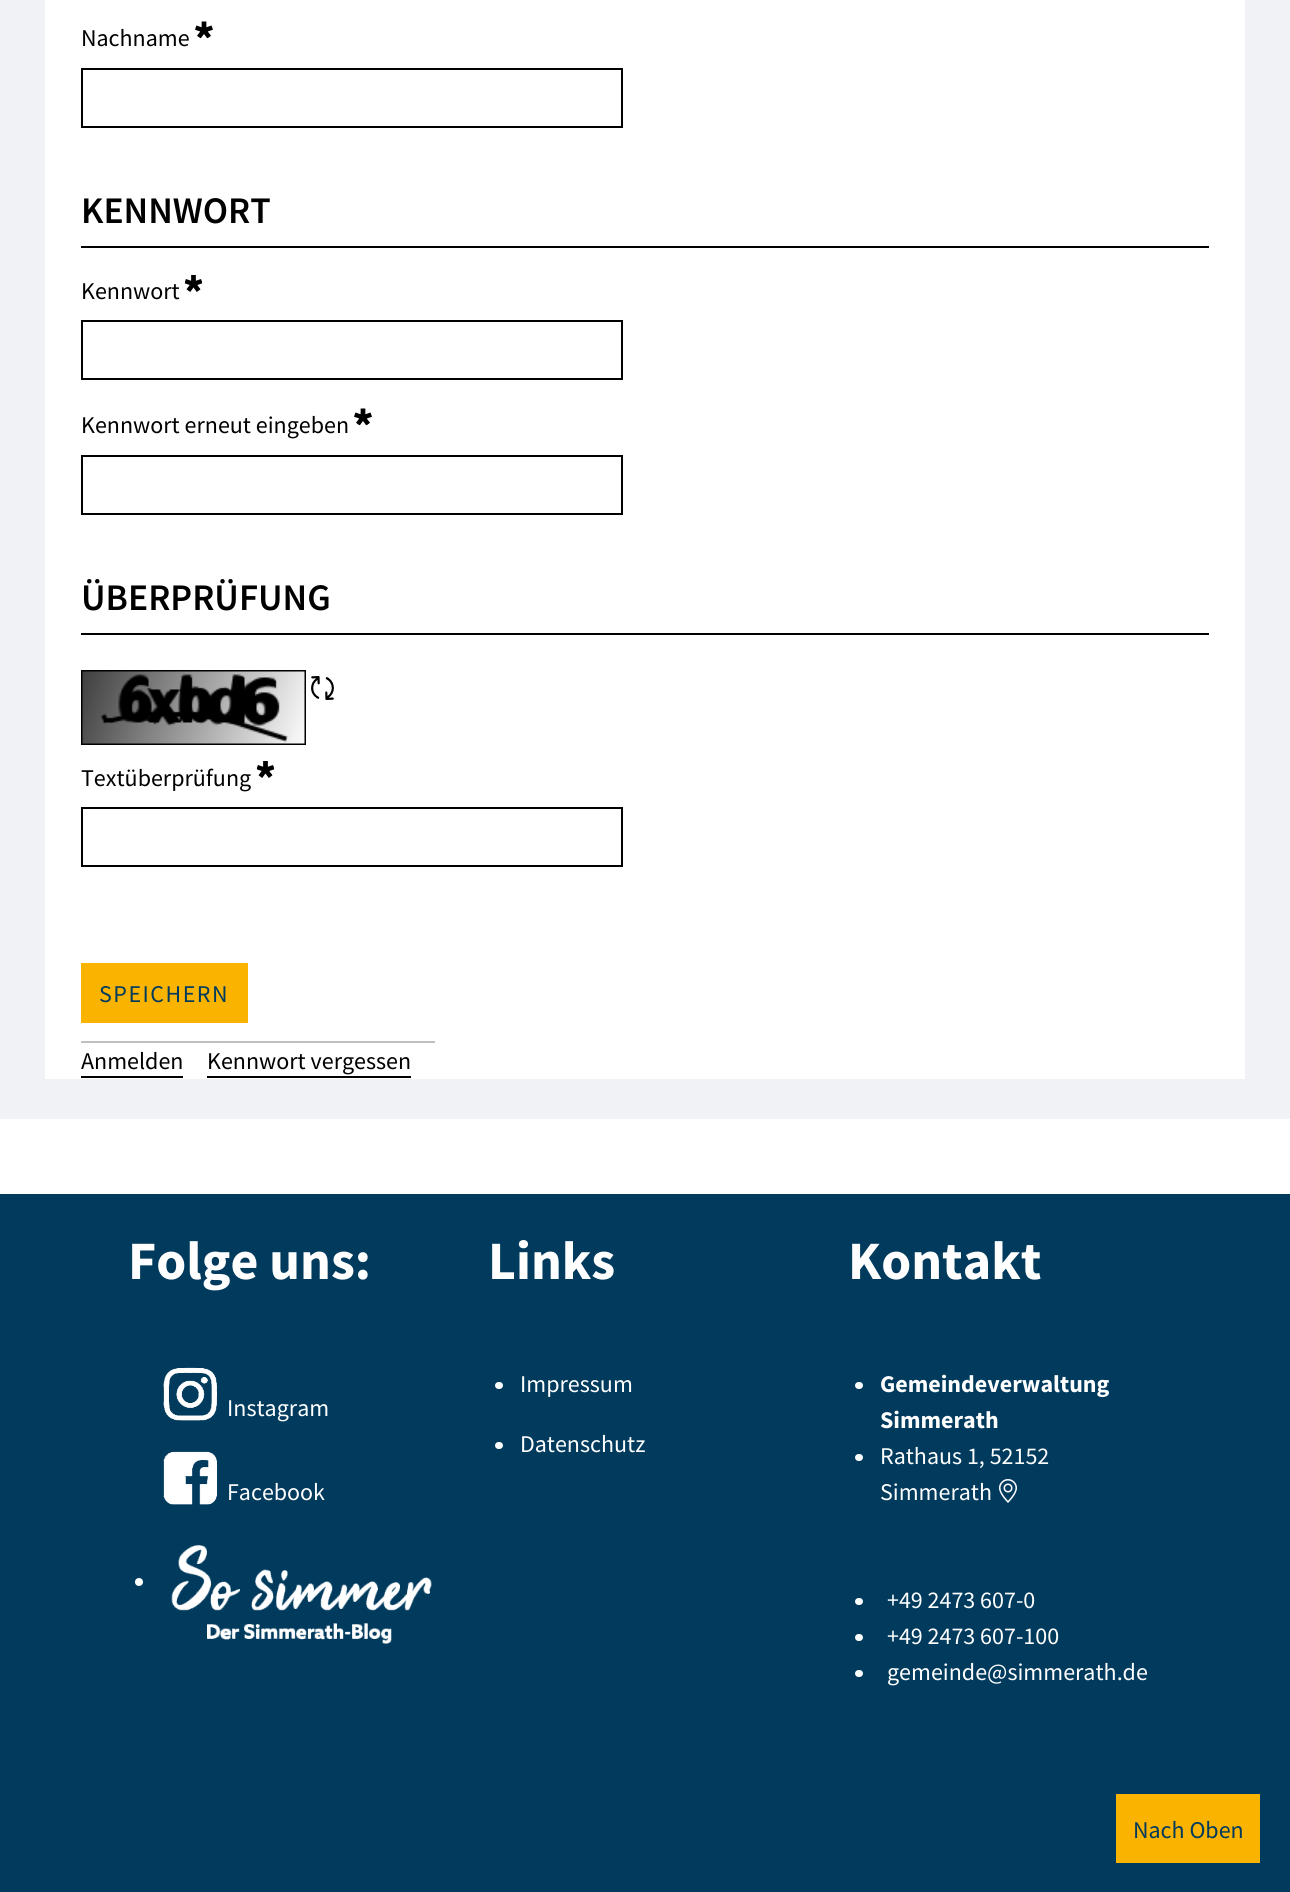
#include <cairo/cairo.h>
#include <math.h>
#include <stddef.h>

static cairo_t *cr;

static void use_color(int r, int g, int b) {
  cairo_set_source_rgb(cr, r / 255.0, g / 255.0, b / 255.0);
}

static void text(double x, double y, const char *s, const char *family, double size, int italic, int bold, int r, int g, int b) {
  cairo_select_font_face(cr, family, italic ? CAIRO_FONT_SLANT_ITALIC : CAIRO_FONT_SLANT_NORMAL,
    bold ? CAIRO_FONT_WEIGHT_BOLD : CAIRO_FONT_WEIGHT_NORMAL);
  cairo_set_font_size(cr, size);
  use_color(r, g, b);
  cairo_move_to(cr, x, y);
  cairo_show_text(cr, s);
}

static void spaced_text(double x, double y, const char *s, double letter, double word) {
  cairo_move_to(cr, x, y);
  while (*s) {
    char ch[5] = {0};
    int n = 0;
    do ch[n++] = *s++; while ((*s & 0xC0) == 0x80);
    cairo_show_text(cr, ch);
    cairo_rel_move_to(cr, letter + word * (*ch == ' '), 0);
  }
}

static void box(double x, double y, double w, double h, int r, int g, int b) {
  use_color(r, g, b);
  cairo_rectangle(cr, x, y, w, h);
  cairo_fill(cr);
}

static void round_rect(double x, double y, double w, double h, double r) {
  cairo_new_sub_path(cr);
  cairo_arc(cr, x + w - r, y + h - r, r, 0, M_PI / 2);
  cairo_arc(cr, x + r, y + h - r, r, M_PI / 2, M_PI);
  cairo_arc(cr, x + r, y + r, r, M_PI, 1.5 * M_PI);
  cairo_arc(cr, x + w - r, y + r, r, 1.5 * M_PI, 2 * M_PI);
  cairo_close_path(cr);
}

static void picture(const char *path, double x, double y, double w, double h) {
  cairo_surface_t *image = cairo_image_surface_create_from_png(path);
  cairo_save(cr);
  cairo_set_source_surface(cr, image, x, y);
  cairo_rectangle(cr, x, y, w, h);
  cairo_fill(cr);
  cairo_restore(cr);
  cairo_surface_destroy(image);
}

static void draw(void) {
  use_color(255, 255, 255);
  cairo_paint(cr);
  box(0, 0, 1290, 1119, 241, 242, 245);
  box(45, 0, 1200, 1079, 255, 255, 255);
  picture("img_01.png", 195, 21, 18, 18);
  cairo_rectangle(cr, 82, 69, 540, 58);
  use_color(0, 0, 0);
  cairo_stroke(cr);
  box(81, 246, 1128, 2, 0, 0, 0);
  picture("img_02.png", 184, 275, 19, 17);
  cairo_rectangle(cr, 82, 321, 540, 58);
  cairo_stroke(cr);
  picture("img_01.png", 354, 408, 18, 18);
  cairo_rectangle(cr, 82, 456, 540, 58);
  cairo_stroke(cr);
  box(81, 633, 1128, 2, 0, 0, 0);
  picture("img_03.png", 81, 670, 225, 75);
  picture("img_04.png", 311, 676, 23, 24);
  picture("img_02.png", 256, 761, 19, 17);
  cairo_rectangle(cr, 82, 808, 540, 58);
  cairo_stroke(cr);
  box(81, 963, 167, 60, 250, 180, 0);
  box(81, 1041, 354, 2, 191, 191, 191);
  box(81, 1076, 102, 2, 0, 0, 0);
  box(207, 1076, 204, 2, 0, 0, 0);
  box(0, 1194, 1290, 698, 0, 58, 93);
  picture("img_05.png", 163, 1367, 54, 54);
  picture("img_06.png", 163, 1451, 54, 54);
  use_color(255, 255, 255);
  cairo_arc(cr, 139, 1582, 4, 0, 2 * M_PI);
  cairo_fill(cr);
  picture("img_07.png", 171, 1545, 261, 99);
  round_rect(495, 1382, 8, 7, 3.5);
  cairo_fill(cr);
  round_rect(495, 1442, 8, 7, 3.5);
  cairo_fill(cr);
  round_rect(855, 1382, 8, 7, 3.5);
  cairo_fill(cr);
  round_rect(855, 1454, 8, 7, 3.5);
  cairo_fill(cr);
  picture("img_08.png", 999, 1479, 18, 24);
  round_rect(855, 1598, 8, 7, 3.5);
  cairo_fill(cr);
  round_rect(855, 1634, 8, 7, 3.5);
  cairo_fill(cr);
  round_rect(855, 1670, 8, 7, 3.5);
  cairo_fill(cr);
  box(1116, 1794, 144, 69, 250, 180, 0);
  text(81, 46, "Nachname", "Source Sans Pro", 24, 0, 0, 0, 0, 0);
  text(81, 223, "KENNWORT", "Source Sans Pro SemiBold", 37.5, 0, 0, 0, 0, 0);
  text(81, 299, "Kennwort", "Source Sans Pro", 24, 0, 0, 0, 0, 0);
  text(81, 433, "Kennwort erneut eingeben", "Source Sans Pro", 24, 0, 0, 0, 0, 0);
  text(81, 610, "ÜBERPRÜFUNG", "Source Sans Pro SemiBold", 37.5, 0, 0, 0, 0, 0);
  text(81, 786, "Textüberprüfung", "Source Sans Pro", 24, 0, 0, 0, 0, 0);
  use_color(0, 58, 93);
  spaced_text(99, 1002, "SPEICHERN", 1.5, 0);
  text(81, 1069, "Anmelden", "Source Sans Pro", 24, 0, 0, 0, 0, 0);
  text(207, 1069, "Kennwort vergessen", "Source Sans Pro", 24, 0, 0, 0, 0, 0);
  text(128, 1279, "Folge uns:", "Source Sans Pro", 54, 0, 1, 255, 255, 255);
  text(227, 1416, "Instagram", "Source Sans Pro", 24, 0, 0, 255, 255, 255);
  text(227, 1500, "Facebook", "Source Sans Pro", 24, 0, 0, 255, 255, 255);
  text(488, 1279, "Links", "Source Sans Pro", 54, 0, 1, 255, 255, 255);
  text(520, 1392, "Impressum", "Source Sans Pro", 24, 0, 0, 255, 255, 255);
  text(520, 1452, "Datenschutz", "Source Sans Pro", 24, 0, 0, 255, 255, 255);
  text(848, 1279, "Kontakt", "Source Sans Pro", 54, 0, 1, 255, 255, 255);
  text(880, 1392, "Gemeindeverwaltung", "Source Sans Pro", 24, 0, 1, 255, 255, 255);
  text(880, 1428, "Simmerath", "Source Sans Pro", 24, 0, 1, 255, 255, 255);
  text(880, 1464, "Rathaus 1, 52152", "Source Sans Pro", 24, 0, 0, 255, 255, 255);
  text(880, 1500, "Simmerath", "Source Sans Pro", 24, 0, 0, 255, 255, 255);
  text(887, 1608, "+49 2473 607-0", "Source Sans Pro", 24, 0, 0, 255, 255, 255);
  text(887, 1644, "+49 2473 607-100", "Source Sans Pro", 24, 0, 0, 255, 255, 255);
  text(887, 1680, "gemeinde@simmerath.de", "Source Sans Pro", 24, 0, 0, 255, 255, 255);
  text(1133, 1838, "Nach Oben", "Source Sans Pro", 24, 0, 0, 0, 58, 93);
}

int main(void) {
  cairo_surface_t *surface = cairo_image_surface_create(CAIRO_FORMAT_RGB24, 1290, 1892);
  cr = cairo_create(surface);
  cairo_font_options_t *options = cairo_font_options_create();
  cairo_font_options_set_hint_metrics(options, CAIRO_HINT_METRICS_OFF);
  cairo_font_options_set_hint_style(options, CAIRO_HINT_STYLE_NONE);
  cairo_set_font_options(cr, options);
  cairo_set_miter_limit(cr, 4);
  draw();
  cairo_surface_write_to_png(surface, "out.png");
  cairo_font_options_destroy(options);
  cairo_destroy(cr);
  cairo_surface_destroy(surface);
  return 0;
}
